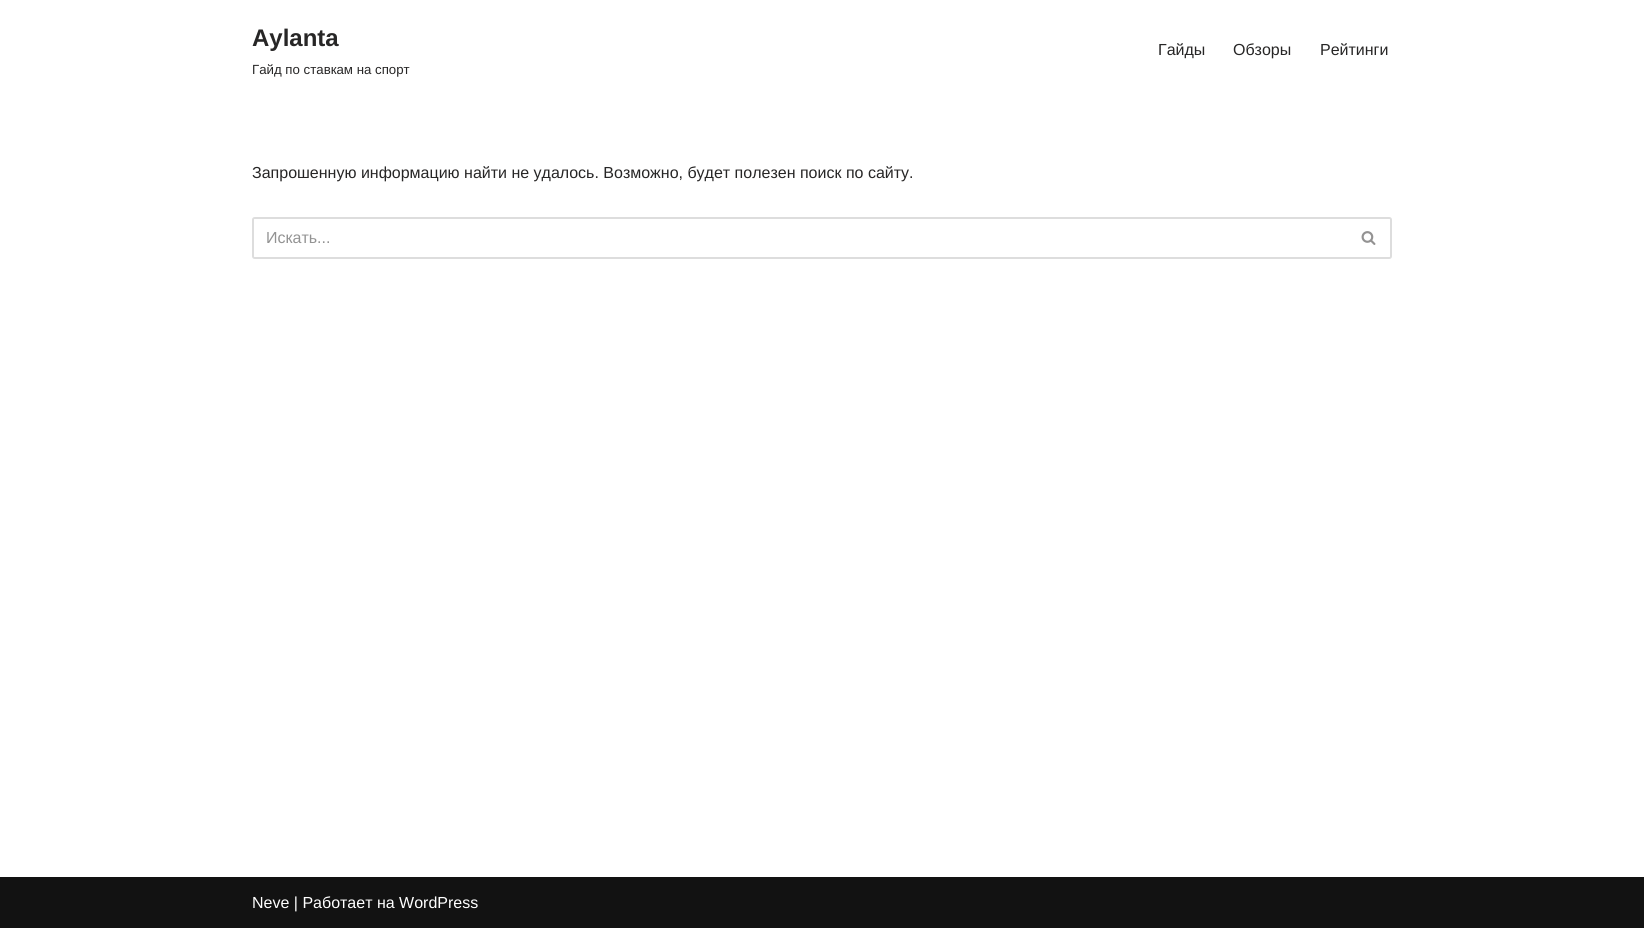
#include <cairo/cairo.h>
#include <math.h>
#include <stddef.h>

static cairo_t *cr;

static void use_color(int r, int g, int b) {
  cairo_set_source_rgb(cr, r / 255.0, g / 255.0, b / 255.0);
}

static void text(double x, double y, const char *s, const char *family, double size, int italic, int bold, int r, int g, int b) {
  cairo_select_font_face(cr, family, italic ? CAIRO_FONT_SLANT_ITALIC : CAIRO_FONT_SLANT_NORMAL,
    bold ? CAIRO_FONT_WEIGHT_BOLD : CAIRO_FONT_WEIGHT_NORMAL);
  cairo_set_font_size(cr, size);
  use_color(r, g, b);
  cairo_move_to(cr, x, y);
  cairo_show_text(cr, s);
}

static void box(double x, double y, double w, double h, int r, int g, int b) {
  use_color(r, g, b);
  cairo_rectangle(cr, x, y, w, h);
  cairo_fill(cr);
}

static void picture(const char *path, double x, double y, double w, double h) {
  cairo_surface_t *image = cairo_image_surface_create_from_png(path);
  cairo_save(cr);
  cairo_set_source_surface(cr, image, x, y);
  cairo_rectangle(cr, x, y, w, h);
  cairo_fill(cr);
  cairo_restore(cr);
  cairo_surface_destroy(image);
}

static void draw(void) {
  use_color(255, 255, 255);
  cairo_paint(cr);
  use_color(221, 221, 221);
  cairo_set_fill_rule(cr, CAIRO_FILL_RULE_EVEN_ODD);
  cairo_new_path(cr);
  cairo_move_to(cr, 255, 217);
  cairo_line_to(cr, 1347, 217);
  cairo_line_to(cr, 1347, 259);
  cairo_line_to(cr, 255, 259);
  cairo_curve_to(cr, 253, 259, 252, 258, 252, 256);
  cairo_line_to(cr, 252, 220);
  cairo_curve_to(cr, 252, 218, 253, 217, 255, 217);
  cairo_close_path(cr);
  cairo_move_to(cr, 255, 219);
  cairo_line_to(cr, 1347, 219);
  cairo_line_to(cr, 1347, 257);
  cairo_line_to(cr, 255, 257);
  cairo_curve_to(cr, 254, 257, 254, 257, 254, 256);
  cairo_line_to(cr, 254, 220);
  cairo_curve_to(cr, 254, 219, 254, 219, 255, 219);
  cairo_close_path(cr);
  cairo_fill(cr);
  cairo_new_path(cr);
  cairo_move_to(cr, 1347, 217);
  cairo_line_to(cr, 1389, 217);
  cairo_curve_to(cr, 1391, 217, 1392, 218, 1392, 220);
  cairo_line_to(cr, 1392, 256);
  cairo_curve_to(cr, 1392, 258, 1391, 259, 1389, 259);
  cairo_line_to(cr, 1347, 259);
  cairo_close_path(cr);
  cairo_move_to(cr, 1347, 219);
  cairo_line_to(cr, 1389, 219);
  cairo_curve_to(cr, 1390, 219, 1390, 219, 1390, 220);
  cairo_line_to(cr, 1390, 256);
  cairo_curve_to(cr, 1390, 257, 1390, 257, 1389, 257);
  cairo_line_to(cr, 1347, 257);
  cairo_close_path(cr);
  cairo_fill(cr);
  picture("img_01.png", 1361, 231, 15, 14);
  box(0, 877, 1644, 51, 18, 18, 18);
  text(252, 46, "Aylanta", "Liberation Sans", 24, 0, 1, 39, 38, 38);
  text(252, 74, "Гайд по ставкам на спорт", "Liberation Sans", 13.25, 0, 0, 39, 38, 38);
  text(1158, 55, "Гайды", "Liberation Sans", 16, 0, 0, 39, 38, 38);
  text(1233, 55, "Обзоры", "Liberation Sans", 16, 0, 0, 39, 38, 38);
  text(1320, 55, "Рейтинги", "Liberation Sans", 16, 0, 0, 39, 38, 38);
  text(252, 178, "Запрошенную информацию найти не удалось. Возможно, будет полезен поиск по сайту.", "Liberation Sans", 16, 0, 0, 39, 38, 38);
  text(266, 243, "Искать...", "Liberation Sans", 16, 0, 0, 147, 147, 147);
  text(252, 908, "Neve | Работает на WordPress", "Liberation Sans", 16, 0, 0, 255, 255, 255);
}

int main(void) {
  cairo_surface_t *surface = cairo_image_surface_create(CAIRO_FORMAT_RGB24, 1644, 928);
  cr = cairo_create(surface);
  cairo_font_options_t *options = cairo_font_options_create();
  cairo_font_options_set_hint_metrics(options, CAIRO_HINT_METRICS_OFF);
  cairo_font_options_set_hint_style(options, CAIRO_HINT_STYLE_NONE);
  cairo_set_font_options(cr, options);
  cairo_set_miter_limit(cr, 4);
  draw();
  cairo_surface_write_to_png(surface, "out.png");
  cairo_font_options_destroy(options);
  cairo_destroy(cr);
  cairo_surface_destroy(surface);
  return 0;
}
